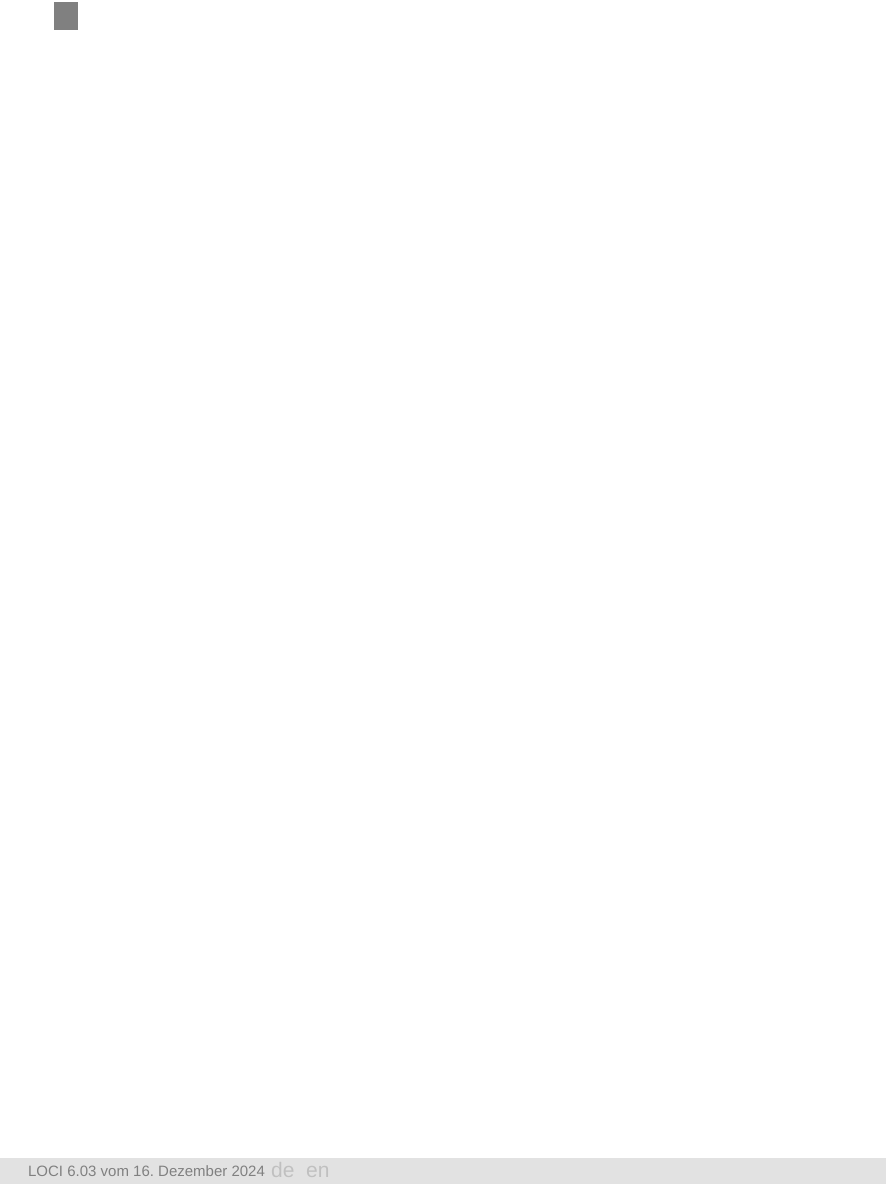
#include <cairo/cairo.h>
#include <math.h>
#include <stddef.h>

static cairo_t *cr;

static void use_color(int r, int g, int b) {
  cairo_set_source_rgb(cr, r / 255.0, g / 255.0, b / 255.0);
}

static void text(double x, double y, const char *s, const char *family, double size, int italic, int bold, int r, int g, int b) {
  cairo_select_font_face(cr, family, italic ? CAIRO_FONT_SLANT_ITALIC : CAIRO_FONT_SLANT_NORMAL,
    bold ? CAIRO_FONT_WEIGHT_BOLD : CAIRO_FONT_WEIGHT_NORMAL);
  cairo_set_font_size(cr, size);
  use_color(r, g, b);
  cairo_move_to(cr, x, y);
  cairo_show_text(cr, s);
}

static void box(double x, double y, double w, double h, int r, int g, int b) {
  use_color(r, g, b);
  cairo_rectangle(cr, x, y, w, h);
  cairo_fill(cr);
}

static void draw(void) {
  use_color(255, 255, 255);
  cairo_paint(cr);
  box(54, 2, 24, 28, 128, 128, 128);
  box(0, 1158, 886, 26, 226, 226, 226);
  text(28, 1176, "LOCI 6.03 vom 16. Dezember 2024", "Liberation Sans", 15, 0, 0, 128, 128, 128);
  text(271, 1177, "de", "Liberation Sans", 21, 0, 0, 192, 192, 192);
  text(306, 1177, "en", "Liberation Sans", 21, 0, 0, 192, 192, 192);
}

int main(void) {
  cairo_surface_t *surface = cairo_image_surface_create(CAIRO_FORMAT_RGB24, 886, 1184);
  cr = cairo_create(surface);
  cairo_font_options_t *options = cairo_font_options_create();
  cairo_font_options_set_hint_metrics(options, CAIRO_HINT_METRICS_OFF);
  cairo_font_options_set_hint_style(options, CAIRO_HINT_STYLE_NONE);
  cairo_set_font_options(cr, options);
  cairo_set_miter_limit(cr, 4);
  draw();
  cairo_surface_write_to_png(surface, "out.png");
  cairo_font_options_destroy(options);
  cairo_destroy(cr);
  cairo_surface_destroy(surface);
  return 0;
}
